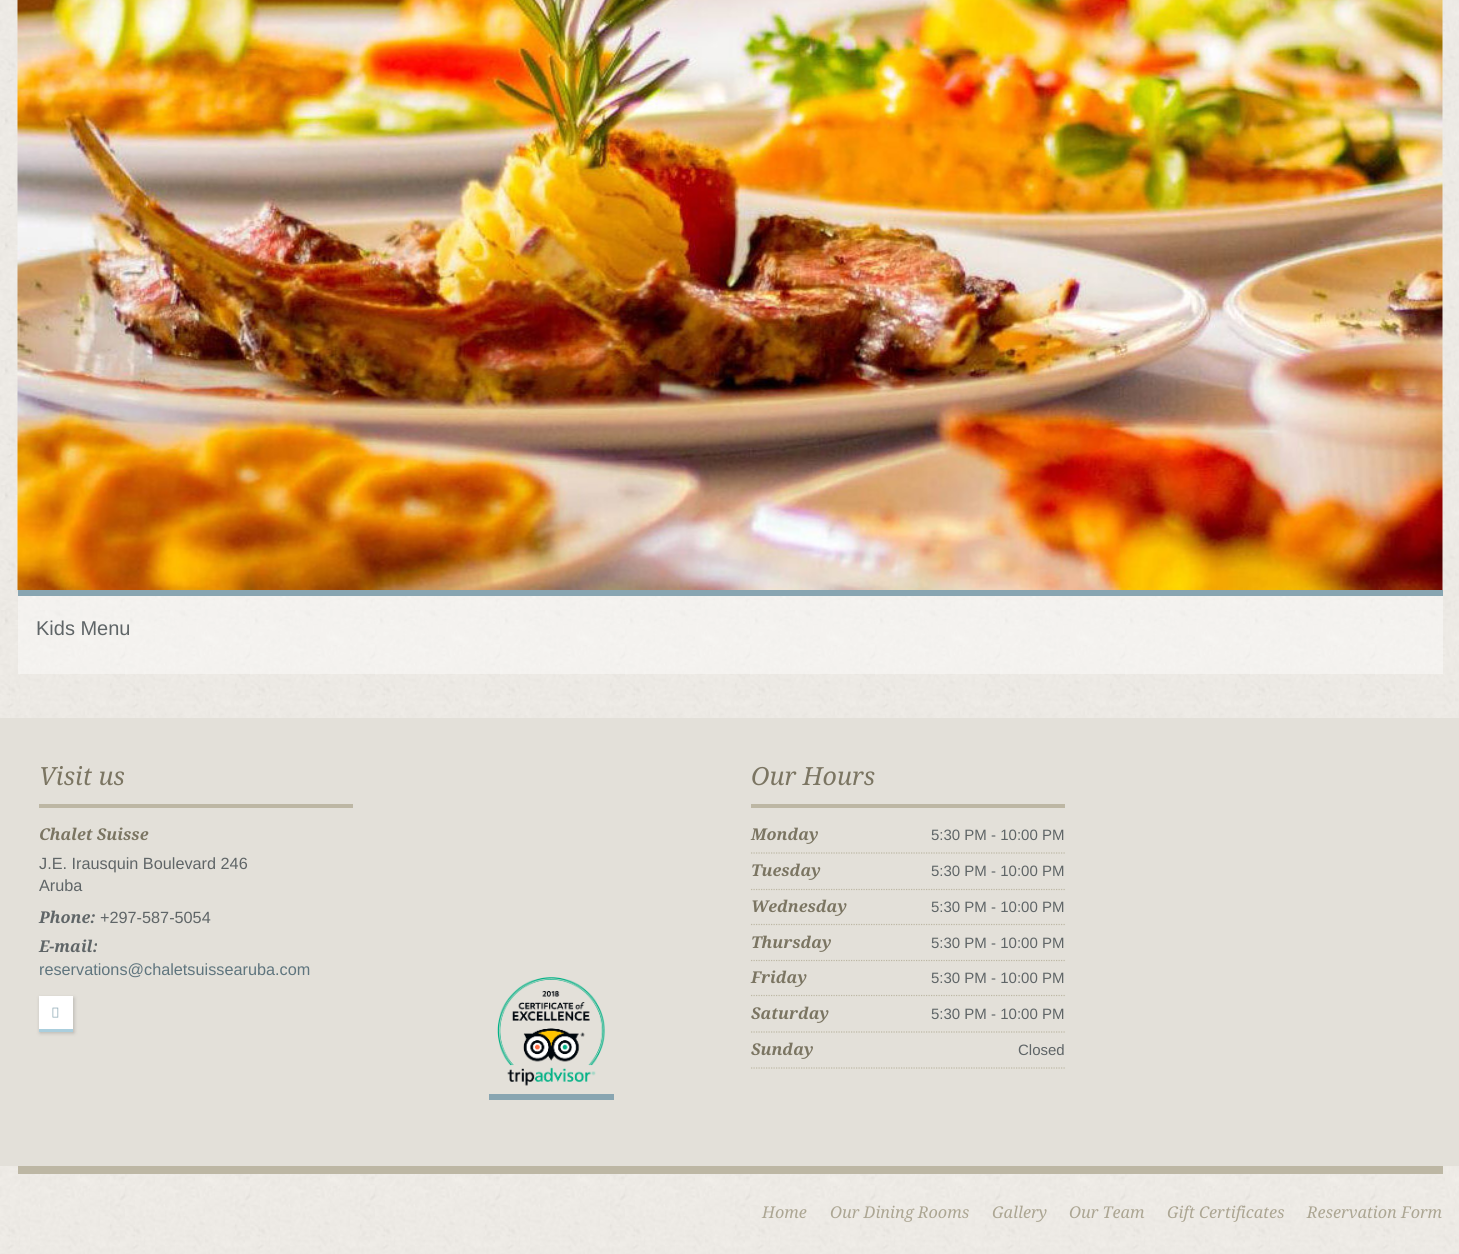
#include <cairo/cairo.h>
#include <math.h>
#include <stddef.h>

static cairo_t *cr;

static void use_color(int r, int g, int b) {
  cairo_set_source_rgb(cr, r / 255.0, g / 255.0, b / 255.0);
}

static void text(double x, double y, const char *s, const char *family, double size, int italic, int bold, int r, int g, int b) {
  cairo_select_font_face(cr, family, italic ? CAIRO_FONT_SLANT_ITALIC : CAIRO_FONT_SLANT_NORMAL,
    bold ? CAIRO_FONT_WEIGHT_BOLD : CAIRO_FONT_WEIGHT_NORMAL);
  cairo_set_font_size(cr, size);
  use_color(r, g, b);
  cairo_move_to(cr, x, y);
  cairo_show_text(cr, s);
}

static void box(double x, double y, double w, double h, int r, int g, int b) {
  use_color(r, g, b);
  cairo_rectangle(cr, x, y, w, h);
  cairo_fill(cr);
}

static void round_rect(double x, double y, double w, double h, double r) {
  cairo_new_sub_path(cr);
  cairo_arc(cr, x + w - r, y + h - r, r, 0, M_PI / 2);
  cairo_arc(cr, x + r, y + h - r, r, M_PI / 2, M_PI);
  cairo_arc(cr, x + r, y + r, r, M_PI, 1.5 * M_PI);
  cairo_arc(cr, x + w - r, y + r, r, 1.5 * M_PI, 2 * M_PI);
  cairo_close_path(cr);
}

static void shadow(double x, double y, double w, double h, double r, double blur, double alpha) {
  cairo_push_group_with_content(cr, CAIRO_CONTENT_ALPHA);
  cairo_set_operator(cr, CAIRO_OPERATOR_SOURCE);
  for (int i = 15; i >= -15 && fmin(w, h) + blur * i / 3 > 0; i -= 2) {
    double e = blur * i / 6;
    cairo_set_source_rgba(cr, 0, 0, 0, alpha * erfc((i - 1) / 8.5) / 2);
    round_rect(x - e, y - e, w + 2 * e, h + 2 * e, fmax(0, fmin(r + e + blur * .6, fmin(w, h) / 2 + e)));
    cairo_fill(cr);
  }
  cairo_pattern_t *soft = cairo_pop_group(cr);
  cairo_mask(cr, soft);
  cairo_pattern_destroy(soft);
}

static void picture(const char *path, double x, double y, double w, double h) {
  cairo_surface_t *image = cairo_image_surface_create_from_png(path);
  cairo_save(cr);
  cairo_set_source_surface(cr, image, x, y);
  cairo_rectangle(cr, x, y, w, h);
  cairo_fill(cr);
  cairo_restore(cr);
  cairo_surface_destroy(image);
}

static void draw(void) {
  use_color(255, 255, 255);
  cairo_paint(cr);
  picture("img_01.png", 0, 1166, 1459, 1);
  picture("img_02.png", 0, 0, 1459, 718);
  picture("img_03.png", 17, 0, 1426, 590);
  box(18, 590, 1425, 6, 136, 165, 177);
  cairo_set_source_rgba(cr, 1, 1, 1, 0.4);
  cairo_rectangle(cr, 18, 596, 1425, 78);
  cairo_fill(cr);
  box(0, 718, 1459, 448, 227, 224, 217);
  box(39, 804, 314, 4, 189, 183, 164);
  use_color(0, 0, 0);
  shadow(40, 998, 34, 35, 0, 2, 0.2);
  box(39, 996, 34, 33, 255, 255, 255);
  box(39, 1029, 34, 3, 170, 206, 221);
  picture("img_04.png", 52, 1007, 7, 11);
  box(489, 1094, 125, 6, 136, 165, 177);
  picture("img_05.png", 497, 977, 108, 109);
  box(751, 804, 314, 4, 189, 183, 164);
  cairo_new_path(cr);
  cairo_move_to(cr, 751, 853);
  cairo_line_to(cr, 1065, 853);
  cairo_set_line_width(cr, 1.2);
  cairo_set_dash(cr, (double[]){1.25, 1.25}, 2, 0);
  cairo_stroke(cr);
  cairo_new_path(cr);
  cairo_move_to(cr, 751, 889.5);
  cairo_line_to(cr, 1065, 889.5);
  cairo_stroke(cr);
  cairo_new_path(cr);
  cairo_move_to(cr, 751, 924.5);
  cairo_line_to(cr, 1065, 924.5);
  cairo_stroke(cr);
  cairo_new_path(cr);
  cairo_move_to(cr, 751, 960.5);
  cairo_line_to(cr, 1065, 960.5);
  cairo_stroke(cr);
  cairo_new_path(cr);
  cairo_move_to(cr, 751, 995.5);
  cairo_line_to(cr, 1065, 995.5);
  cairo_stroke(cr);
  cairo_new_path(cr);
  cairo_move_to(cr, 751, 1032);
  cairo_line_to(cr, 1065, 1032);
  cairo_stroke(cr);
  cairo_new_path(cr);
  cairo_move_to(cr, 751, 1068);
  cairo_line_to(cr, 1065, 1068);
  cairo_stroke(cr);
  picture("img_06.png", 0, 1166, 1459, 88);
  box(18, 1166, 1425, 8, 189, 183, 164);
  text(36, 635, "Kids Menu", "Liberation Sans", 20, 0, 0, 95, 101, 103);
  text(39, 785, "Visit us", "Droid Serif", 25, 1, 0, 123, 117, 98);
  text(39, 840, "Chalet Suisse", "Droid Serif", 16.25, 1, 1, 123, 117, 98);
  text(39, 869, "J.E. Irausquin Boulevard 246", "Liberation Sans", 16.25, 0, 0, 95, 101, 103);
  text(39, 891, "Aruba", "Liberation Sans", 16.25, 0, 0, 95, 101, 103);
  text(39, 923, "Phone:", "Droid Serif", 16.25, 1, 1, 95, 101, 103);
  text(100, 923, "+297-587-5054", "Liberation Sans", 16.25, 0, 0, 95, 101, 103);
  text(39, 952, "E-mail:", "Droid Serif", 16.25, 1, 1, 95, 101, 103);
  text(39, 975, "reservations@chaletsuissearuba.com", "Liberation Sans", 16.25, 0, 0, 95, 117, 126);
  text(751, 785, "Our Hours", "Droid Serif", 25, 1, 0, 123, 117, 98);
  text(751, 840, "Monday", "Droid Serif", 16.25, 1, 1, 123, 117, 98);
  text(931, 840, "5:30 PM - 10:00 PM", "Liberation Sans", 15, 0, 0, 95, 101, 103);
  text(751, 876, "Tuesday", "Droid Serif", 16.25, 1, 1, 123, 117, 98);
  text(931, 876, "5:30 PM - 10:00 PM", "Liberation Sans", 15, 0, 0, 95, 101, 103);
  text(751, 912, "Wednesday", "Droid Serif", 16.25, 1, 1, 123, 117, 98);
  text(931, 912, "5:30 PM - 10:00 PM", "Liberation Sans", 15, 0, 0, 95, 101, 103);
  text(751, 948, "Thursday", "Droid Serif", 16.25, 1, 1, 123, 117, 98);
  text(931, 948, "5:30 PM - 10:00 PM", "Liberation Sans", 15, 0, 0, 95, 101, 103);
  text(751, 983, "Friday", "Droid Serif", 16.25, 1, 1, 123, 117, 98);
  text(931, 983, "5:30 PM - 10:00 PM", "Liberation Sans", 15, 0, 0, 95, 101, 103);
  text(751, 1019, "Saturday", "Droid Serif", 16.25, 1, 1, 123, 117, 98);
  text(931, 1019, "5:30 PM - 10:00 PM", "Liberation Sans", 15, 0, 0, 95, 101, 103);
  text(751, 1055, "Sunday", "Droid Serif", 16.25, 1, 1, 123, 117, 98);
  text(1018, 1055, "Closed", "Liberation Sans", 15, 0, 0, 95, 101, 103);
  text(762, 1218, "Home", "Droid Serif", 16.25, 1, 0, 172, 166, 147);
  text(830, 1218, "Our Dining Rooms", "Droid Serif", 16.25, 1, 0, 172, 166, 147);
  text(992, 1218, "Gallery", "Droid Serif", 16.25, 1, 0, 172, 166, 147);
  text(1069, 1218, "Our Team", "Droid Serif", 16.25, 1, 0, 172, 166, 147);
  text(1167, 1218, "Gift Certificates", "Droid Serif", 16.25, 1, 0, 172, 166, 147);
  text(1307, 1218, "Reservation Form", "Droid Serif", 16.25, 1, 0, 172, 166, 147);
}

int main(void) {
  cairo_surface_t *surface = cairo_image_surface_create(CAIRO_FORMAT_RGB24, 1459, 1254);
  cr = cairo_create(surface);
  cairo_font_options_t *options = cairo_font_options_create();
  cairo_font_options_set_hint_metrics(options, CAIRO_HINT_METRICS_OFF);
  cairo_font_options_set_hint_style(options, CAIRO_HINT_STYLE_NONE);
  cairo_set_font_options(cr, options);
  cairo_set_miter_limit(cr, 4);
  draw();
  cairo_surface_write_to_png(surface, "out.png");
  cairo_font_options_destroy(options);
  cairo_destroy(cr);
  cairo_surface_destroy(surface);
  return 0;
}
